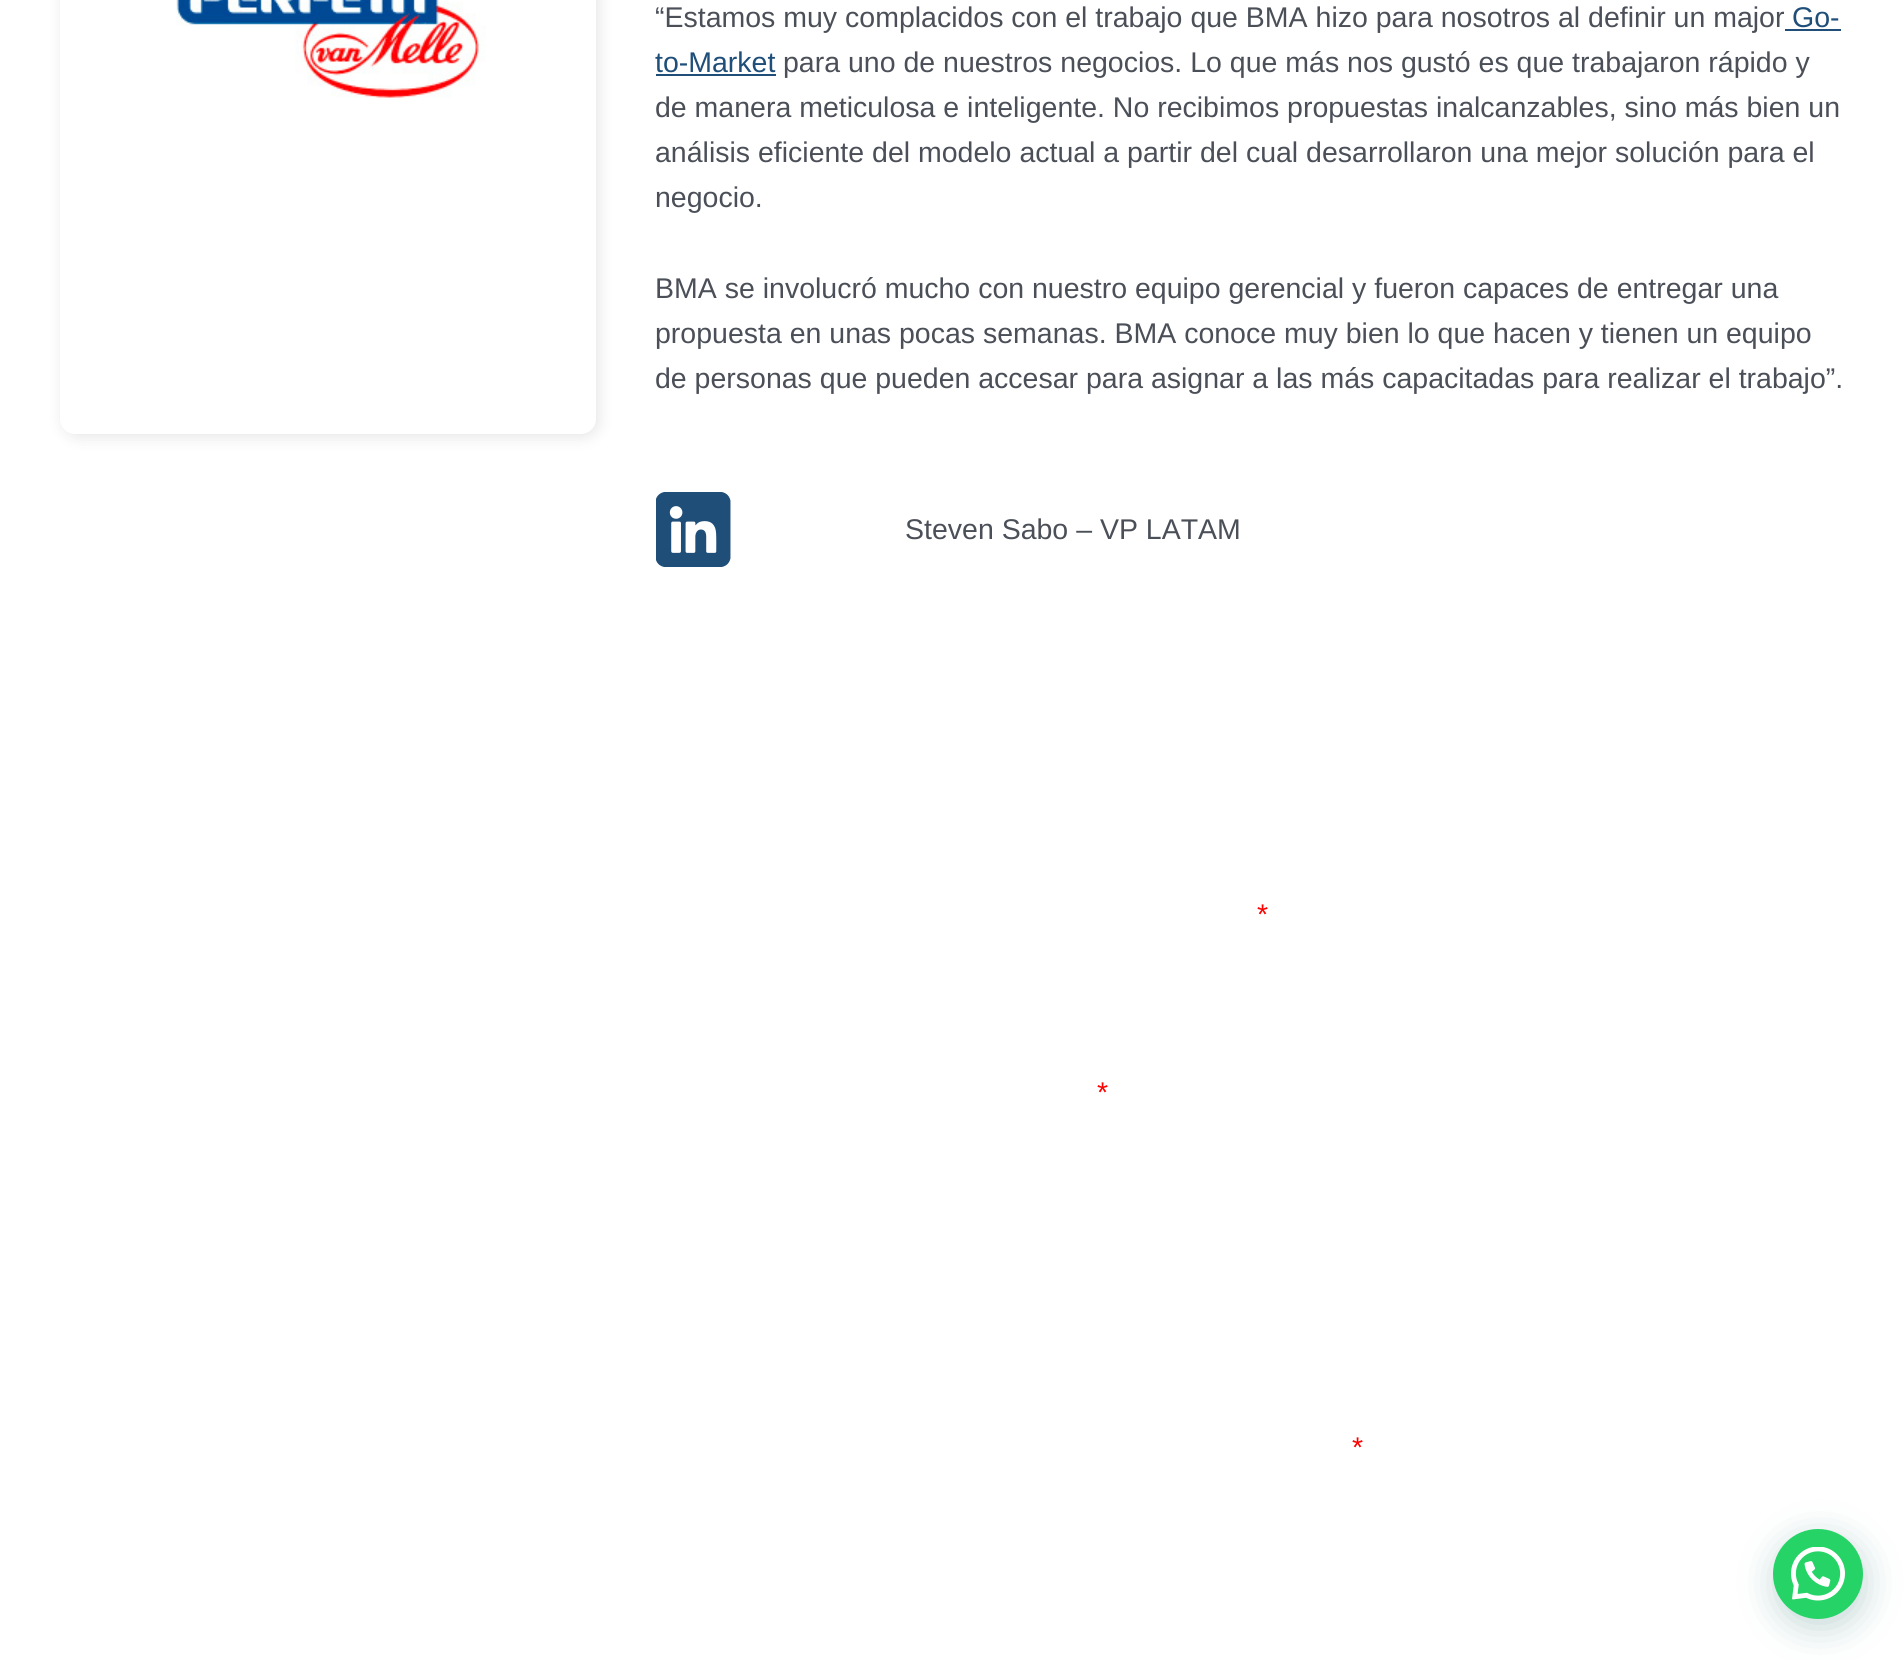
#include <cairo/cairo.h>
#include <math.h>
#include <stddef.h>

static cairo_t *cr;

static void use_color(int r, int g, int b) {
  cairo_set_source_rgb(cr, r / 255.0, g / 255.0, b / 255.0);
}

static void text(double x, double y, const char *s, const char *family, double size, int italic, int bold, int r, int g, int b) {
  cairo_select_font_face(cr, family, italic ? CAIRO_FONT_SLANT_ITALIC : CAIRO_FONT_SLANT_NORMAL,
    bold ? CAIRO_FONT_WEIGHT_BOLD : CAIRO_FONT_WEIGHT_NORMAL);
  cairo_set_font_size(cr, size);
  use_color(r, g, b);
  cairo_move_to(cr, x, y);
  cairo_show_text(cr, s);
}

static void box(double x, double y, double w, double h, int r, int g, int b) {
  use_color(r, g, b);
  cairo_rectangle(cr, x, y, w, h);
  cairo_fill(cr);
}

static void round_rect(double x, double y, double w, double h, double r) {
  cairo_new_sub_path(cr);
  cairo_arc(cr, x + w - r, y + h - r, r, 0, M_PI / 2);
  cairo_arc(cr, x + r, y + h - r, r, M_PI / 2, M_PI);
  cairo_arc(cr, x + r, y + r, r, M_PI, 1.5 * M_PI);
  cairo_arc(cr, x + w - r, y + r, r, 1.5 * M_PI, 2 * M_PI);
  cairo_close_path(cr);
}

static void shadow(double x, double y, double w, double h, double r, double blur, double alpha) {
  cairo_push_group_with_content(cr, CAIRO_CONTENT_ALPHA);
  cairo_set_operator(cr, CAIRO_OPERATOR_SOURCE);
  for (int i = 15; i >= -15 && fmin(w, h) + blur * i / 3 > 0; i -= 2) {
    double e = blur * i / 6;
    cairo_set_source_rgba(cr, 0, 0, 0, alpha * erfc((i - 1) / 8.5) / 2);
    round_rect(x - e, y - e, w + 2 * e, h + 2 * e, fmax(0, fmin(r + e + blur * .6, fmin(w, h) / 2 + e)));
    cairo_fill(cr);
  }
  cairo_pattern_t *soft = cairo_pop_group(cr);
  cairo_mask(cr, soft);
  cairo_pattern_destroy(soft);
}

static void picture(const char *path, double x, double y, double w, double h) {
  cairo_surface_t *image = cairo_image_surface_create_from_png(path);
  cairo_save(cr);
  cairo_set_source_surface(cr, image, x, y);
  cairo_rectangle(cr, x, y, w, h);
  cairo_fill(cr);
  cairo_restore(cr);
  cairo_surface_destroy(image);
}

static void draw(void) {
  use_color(255, 255, 255);
  cairo_paint(cr);
  use_color(0, 0, 0);
  shadow(63, -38, 536, 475, 15, 7.5, 0.1);
  use_color(255, 255, 255);
  round_rect(60, -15, 536, 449, 15);
  cairo_fill(cr);
  picture("img_01.png", 176, 0, 310, 98);
  box(1785, 29, 56, 2, 31, 78, 121);
  box(656, 74, 120, 2, 31, 78, 121);
  picture("img_02.png", 656, 492, 75, 75);
  use_color(7, 94, 84);
  shadow(1775, 1538, 90, 90, 45, 18, 0.24);
  use_color(37, 211, 102);
  cairo_arc(cr, 1818, 1574, 45, 0, 2 * M_PI);
  cairo_fill(cr);
  picture("img_03.png", 1791, 1547, 54, 54);
  text(655, 27, "“Estamos muy complacidos con el trabajo que BMA hizo para nosotros al definir un major", "Liberation Sans", 28.5, 0, 0, 75, 79, 88);
  text(1792, 27, "Go-", "Liberation Sans", 28.5, 0, 0, 31, 78, 121);
  text(655, 72, "to-Market", "Liberation Sans", 28.5, 0, 0, 31, 78, 121);
  text(783, 72, "para uno de nuestros negocios. Lo que más nos gustó es que trabajaron rápido y", "Liberation Sans", 28.5, 0, 0, 75, 79, 88);
  text(655, 117, "de manera meticulosa e inteligente. No recibimos propuestas inalcanzables, sino más bien un", "Liberation Sans", 28.5, 0, 0, 75, 79, 88);
  text(655, 162, "análisis eficiente del modelo actual a partir del cual desarrollaron una mejor solución para el", "Liberation Sans", 28.5, 0, 0, 75, 79, 88);
  text(655, 207, "negocio.", "Liberation Sans", 28.5, 0, 0, 75, 79, 88);
  text(655, 298, "BMA se involucró mucho con nuestro equipo gerencial y fueron capaces de entregar una", "Liberation Sans", 28.5, 0, 0, 75, 79, 88);
  text(655, 343, "propuesta en unas pocas semanas. BMA conoce muy bien lo que hacen y tienen un equipo", "Liberation Sans", 28.5, 0, 0, 75, 79, 88);
  text(655, 388, "de personas que pueden accesar para asignar a las más capacitadas para realizar el trabajo”.", "Liberation Sans", 28.5, 0, 0, 75, 79, 88);
  text(905, 539, "Steven Sabo – VP LATAM", "Liberation Sans", 28.5, 0, 0, 75, 79, 88);
  text(1257, 924, "*", "Liberation Sans", 28.5, 0, 0, 255, 0, 0);
  text(1097, 1102, "*", "Liberation Sans", 28.5, 0, 0, 255, 0, 0);
  text(1352, 1457, "*", "Liberation Sans", 28.5, 0, 0, 255, 0, 0);
}

int main(void) {
  cairo_surface_t *surface = cairo_image_surface_create(CAIRO_FORMAT_RGB24, 1904, 1660);
  cr = cairo_create(surface);
  cairo_font_options_t *options = cairo_font_options_create();
  cairo_font_options_set_hint_metrics(options, CAIRO_HINT_METRICS_OFF);
  cairo_font_options_set_hint_style(options, CAIRO_HINT_STYLE_NONE);
  cairo_set_font_options(cr, options);
  cairo_set_miter_limit(cr, 4);
  draw();
  cairo_surface_write_to_png(surface, "out.png");
  cairo_font_options_destroy(options);
  cairo_destroy(cr);
  cairo_surface_destroy(surface);
  return 0;
}
